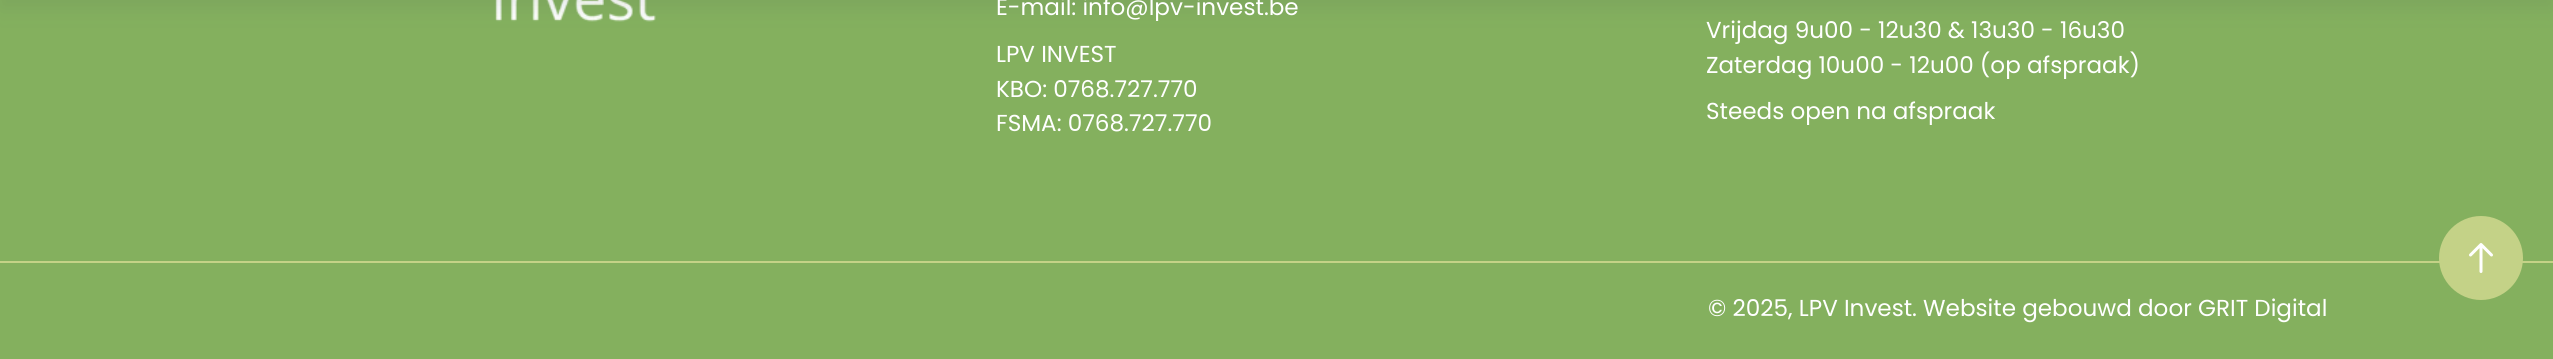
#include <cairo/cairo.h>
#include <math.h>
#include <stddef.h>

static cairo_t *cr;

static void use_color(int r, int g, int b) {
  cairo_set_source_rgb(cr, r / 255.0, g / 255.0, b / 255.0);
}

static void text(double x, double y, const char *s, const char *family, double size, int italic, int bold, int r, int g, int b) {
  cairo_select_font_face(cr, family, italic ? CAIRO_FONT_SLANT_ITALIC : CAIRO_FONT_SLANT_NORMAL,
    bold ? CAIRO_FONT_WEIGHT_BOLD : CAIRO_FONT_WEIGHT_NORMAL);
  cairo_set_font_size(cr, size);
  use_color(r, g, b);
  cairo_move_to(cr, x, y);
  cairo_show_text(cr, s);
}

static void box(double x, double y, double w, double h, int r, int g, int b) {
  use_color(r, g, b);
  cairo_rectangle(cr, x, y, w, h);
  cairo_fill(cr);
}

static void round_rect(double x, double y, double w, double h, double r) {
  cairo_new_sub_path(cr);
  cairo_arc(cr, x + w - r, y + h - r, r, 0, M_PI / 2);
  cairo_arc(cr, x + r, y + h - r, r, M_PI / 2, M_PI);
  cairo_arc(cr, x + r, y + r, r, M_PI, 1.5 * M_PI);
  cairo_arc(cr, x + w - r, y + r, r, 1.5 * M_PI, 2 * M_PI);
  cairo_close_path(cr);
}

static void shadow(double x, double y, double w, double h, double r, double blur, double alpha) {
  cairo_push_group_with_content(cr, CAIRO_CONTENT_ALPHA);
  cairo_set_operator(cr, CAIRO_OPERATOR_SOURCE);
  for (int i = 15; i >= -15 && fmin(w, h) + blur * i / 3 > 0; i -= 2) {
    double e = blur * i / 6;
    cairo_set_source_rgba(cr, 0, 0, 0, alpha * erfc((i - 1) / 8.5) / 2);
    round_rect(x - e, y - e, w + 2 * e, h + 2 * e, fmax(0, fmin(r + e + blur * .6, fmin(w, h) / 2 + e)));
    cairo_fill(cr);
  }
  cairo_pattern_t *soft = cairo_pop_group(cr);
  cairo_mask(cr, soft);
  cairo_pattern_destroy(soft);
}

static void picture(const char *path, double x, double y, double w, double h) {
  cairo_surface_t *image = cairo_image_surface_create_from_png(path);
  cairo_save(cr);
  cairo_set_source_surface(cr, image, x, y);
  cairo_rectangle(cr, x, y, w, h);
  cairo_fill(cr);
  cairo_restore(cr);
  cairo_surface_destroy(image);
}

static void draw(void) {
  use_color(132, 176, 94);
  cairo_paint(cr);
  picture("img_01.png", 495, 0, 161, 22);
  use_color(51, 67, 84);
  shadow(0, -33, 2553, 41, 0, 11, 0.1);
  box(0, 261, 2553, 2, 196, 210, 135);
  cairo_new_path(cr);
  cairo_move_to(cr, 2439, 258);
  cairo_curve_to(cr, 2439, 235, 2458, 216, 2481, 216);
  cairo_curve_to(cr, 2504, 216, 2523, 235, 2523, 258);
  cairo_curve_to(cr, 2523, 281, 2504, 300, 2481, 300);
  cairo_curve_to(cr, 2458, 300, 2439, 281, 2439, 258);
  cairo_close_path(cr);
  cairo_fill(cr);
  picture("img_02.png", 2469, 243, 24, 30);
  text(996, 15, "E-mail: info@lpv-invest.be", "Poppins", 23.1, 0, 0, 255, 255, 255);
  text(996, 62, "LPV INVEST", "Poppins", 23.1, 0, 0, 255, 255, 255);
  text(996, 97, "KBO: 0768.727.770", "Poppins", 23.1, 0, 0, 255, 255, 255);
  text(996, 131, "FSMA: 0768.727.770", "Poppins", 23.1, 0, 0, 255, 255, 255);
  text(1706, 38, "Vrijdag 9u00 - 12u30 & 13u30 - 16u30", "Poppins", 23.1, 0, 0, 255, 255, 255);
  text(1706, 73, "Zaterdag 10u00 - 12u00 (op afspraak)", "Poppins", 23.1, 0, 0, 255, 255, 255);
  text(1706, 119, "Steeds open na afspraak", "Poppins", 23.1, 0, 0, 255, 255, 255);
  text(1708, 316, "© 2025, LPV Invest", "Poppins", 23.1, 0, 0, 255, 255, 255);
  text(1912, 316, ". Website gebouwd door GRIT Digital", "Poppins", 23.1, 0, 0, 255, 255, 255);
}

int main(void) {
  cairo_surface_t *surface = cairo_image_surface_create(CAIRO_FORMAT_RGB24, 2553, 359);
  cr = cairo_create(surface);
  cairo_font_options_t *options = cairo_font_options_create();
  cairo_font_options_set_hint_metrics(options, CAIRO_HINT_METRICS_OFF);
  cairo_font_options_set_hint_style(options, CAIRO_HINT_STYLE_NONE);
  cairo_set_font_options(cr, options);
  cairo_set_miter_limit(cr, 4);
  draw();
  cairo_surface_write_to_png(surface, "out.png");
  cairo_font_options_destroy(options);
  cairo_destroy(cr);
  cairo_surface_destroy(surface);
  return 0;
}
